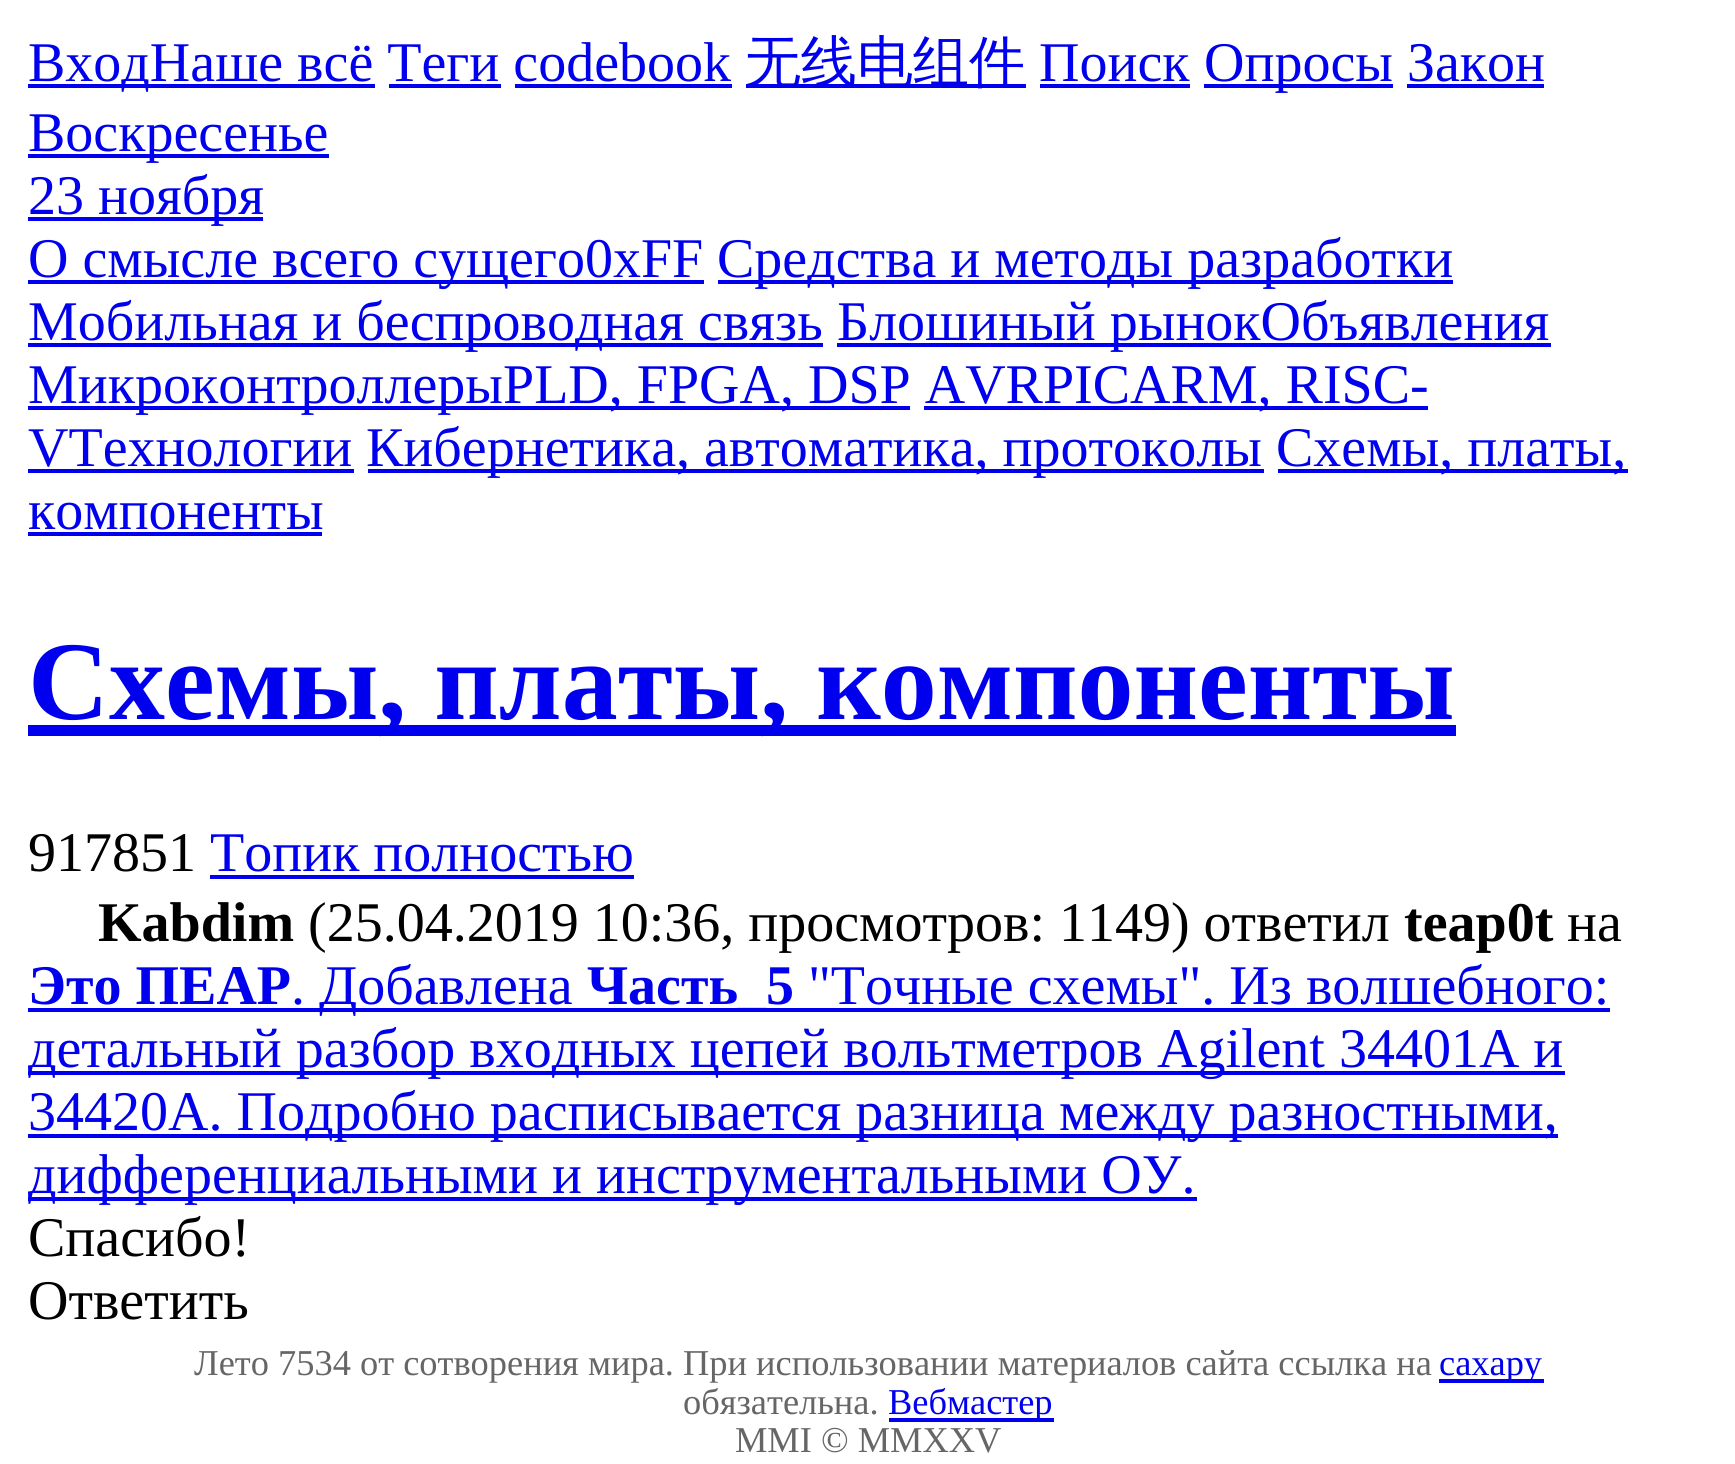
#include <cairo/cairo.h>
#include <math.h>
#include <stddef.h>

static cairo_t *cr;

static void use_color(int r, int g, int b) {
  cairo_set_source_rgb(cr, r / 255.0, g / 255.0, b / 255.0);
}

static void text(double x, double y, const char *s, const char *family, double size, int italic, int bold, int r, int g, int b) {
  cairo_select_font_face(cr, family, italic ? CAIRO_FONT_SLANT_ITALIC : CAIRO_FONT_SLANT_NORMAL,
    bold ? CAIRO_FONT_WEIGHT_BOLD : CAIRO_FONT_WEIGHT_NORMAL);
  cairo_set_font_size(cr, size);
  use_color(r, g, b);
  cairo_move_to(cr, x, y);
  cairo_show_text(cr, s);
}

static void box(double x, double y, double w, double h, int r, int g, int b) {
  use_color(r, g, b);
  cairo_rectangle(cr, x, y, w, h);
  cairo_fill(cr);
}

static void draw(void) {
  use_color(255, 255, 255);
  cairo_paint(cr);
  box(28, 84, 347, 4, 0, 0, 238);
  box(746, 84, 280, 4, 0, 0, 238);
  box(1040, 84, 150, 4, 0, 0, 238);
  box(1204, 84, 189, 4, 0, 0, 238);
  box(389, 84, 112, 4, 0, 0, 238);
  box(515, 84, 217, 4, 0, 0, 238);
  box(1407, 84, 137, 4, 0, 0, 238);
  box(28, 154, 301, 4, 0, 0, 238);
  box(28, 217, 235, 4, 0, 0, 238);
  box(28, 280, 676, 4, 0, 0, 238);
  box(718, 280, 735, 4, 0, 0, 238);
  box(28, 343, 795, 4, 0, 0, 238);
  box(837, 343, 423, 4, 0, 0, 238);
  box(1260, 343, 291, 4, 0, 0, 238);
  box(28, 406, 882, 4, 0, 0, 238);
  box(924, 406, 504, 4, 0, 0, 238);
  box(28, 469, 326, 4, 0, 0, 238);
  box(368, 469, 896, 4, 0, 0, 238);
  box(1278, 469, 350, 4, 0, 0, 238);
  box(28, 532, 294, 4, 0, 0, 238);
  box(28, 725, 1428, 11, 0, 0, 238);
  box(210, 875, 424, 4, 0, 0, 238);
  box(28, 1008, 1582, 4, 0, 0, 238);
  box(28, 1071, 1537, 4, 0, 0, 238);
  box(28, 1134, 1530, 4, 0, 0, 238);
  box(28, 1197, 1169, 4, 0, 0, 238);
  box(1439, 1379, 105, 4, 0, 0, 238);
  box(889, 1418, 165, 4, 0, 0, 238);
  text(28, 81, "ВходНаше всё Теги codebook", "Liberation Serif", 56, 0, 0, 0, 0, 238);
  text(745, 81, "无线电组件", "WenQuanYi Zen Hei Medium", 56, 0, 0, 0, 0, 238);
  text(1039, 81, "Поиск", "Liberation Serif", 56, 0, 0, 0, 0, 238);
  text(1204, 81, "Опросы Закон", "Liberation Serif", 56, 0, 0, 0, 0, 238);
  text(28, 151, "Воскресенье", "Liberation Serif", 56, 0, 0, 0, 0, 238);
  text(28, 214, "23 ноября", "Liberation Serif", 56, 0, 0, 0, 0, 238);
  text(28, 277, "О смысле всего сущего0xFF", "Liberation Serif", 56, 0, 0, 0, 0, 238);
  text(717, 277, "Средства и методы разработки", "Liberation Serif", 56, 0, 0, 0, 0, 238);
  text(28, 340, "Мобильная и беспроводная связь", "Liberation Serif", 56, 0, 0, 0, 0, 238);
  text(837, 340, "Блошиный рынокОбъявления", "Liberation Serif", 56, 0, 0, 0, 0, 238);
  text(28, 403, "МикроконтроллерыPLD, FPGA, DSP AVRPIC", "Liberation Serif", 56, 0, 0, 0, 0, 238);
  text(1130, 403, "ARM, RISC-", "Liberation Serif", 56, 0, 0, 0, 0, 238);
  text(28, 466, "VТехнологии", "Liberation Serif", 56, 0, 0, 0, 0, 238);
  text(366, 466, "Кибернетика, автоматика, протоколы", "Liberation Serif", 56, 0, 0, 0, 0, 238);
  text(1276, 466, "Схемы, платы,", "Liberation Serif", 56, 0, 0, 0, 0, 238);
  text(28, 529, "компоненты", "Liberation Serif", 56, 0, 0, 0, 0, 238);
  text(28, 719, "Схемы, платы, компоненты", "Liberation Serif", 112, 0, 1, 0, 0, 238);
  text(28, 871, "917851", "Liberation Serif", 56, 0, 0, 0, 0, 0);
  text(210, 871, "Топик полностью", "Liberation Serif", 56, 0, 0, 0, 0, 238);
  text(98, 941, "Kabdim", "Liberation Serif", 56, 0, 1, 0, 0, 0);
  text(308, 941, "(25.04.2019 10:36, просмотров: 1149) ответил", "Liberation Serif", 56, 0, 0, 0, 0, 0);
  text(1404, 941, "teap0t", "Liberation Serif", 56, 0, 1, 0, 0, 0);
  text(1567, 941, "на", "Liberation Serif", 56, 0, 0, 0, 0, 0);
  text(28, 1004, "Это ПЕАР", "Liberation Serif", 56, 0, 1, 0, 0, 238);
  text(291, 1004, ". Добавлена", "Liberation Serif", 56, 0, 0, 0, 0, 238);
  text(587, 1004, "Часть_5", "Liberation Serif", 56, 0, 1, 0, 0, 238);
  text(808, 1004, "\"Точные схемы\". Из волшебного:", "Liberation Serif", 56, 0, 0, 0, 0, 238);
  text(28, 1067, "детальный разбор входных цепей вольтметров Agilent 34401A и", "Liberation Serif", 56, 0, 0, 0, 0, 238);
  text(28, 1130, "34420A. Подробно расписывается разница между разностными,", "Liberation Serif", 56, 0, 0, 0, 0, 238);
  text(28, 1193, "дифференциальными и инструментальными ОУ.", "Liberation Serif", 56, 0, 0, 0, 0, 238);
  text(28, 1256, "Спасибо!", "Liberation Serif", 56, 0, 0, 0, 0, 0);
  text(28, 1319, "Ответить", "Liberation Serif", 56, 0, 0, 0, 0, 0);
  text(194, 1375, "Лето 7534 от сотворения мира. При использовании материалов сайта ссылка на", "Liberation Serif", 36.4, 0, 0, 102, 102, 102);
  text(1439, 1375, "caxapу", "Liberation Serif", 36.4, 0, 0, 0, 0, 238);
  text(683, 1414, "обязательна.", "Liberation Serif", 36.4, 0, 0, 102, 102, 102);
  text(888, 1414, "Вебмастер", "Liberation Serif", 36.4, 0, 0, 0, 0, 238);
  text(735, 1452, "MMI © MMXXV", "Liberation Serif", 36.4, 0, 0, 102, 102, 102);
}

int main(void) {
  cairo_surface_t *surface = cairo_image_surface_create(CAIRO_FORMAT_RGB24, 1735, 1464);
  cr = cairo_create(surface);
  cairo_font_options_t *options = cairo_font_options_create();
  cairo_font_options_set_hint_metrics(options, CAIRO_HINT_METRICS_OFF);
  cairo_font_options_set_hint_style(options, CAIRO_HINT_STYLE_NONE);
  cairo_set_font_options(cr, options);
  cairo_set_miter_limit(cr, 4);
  draw();
  cairo_surface_write_to_png(surface, "out.png");
  cairo_font_options_destroy(options);
  cairo_destroy(cr);
  cairo_surface_destroy(surface);
  return 0;
}
